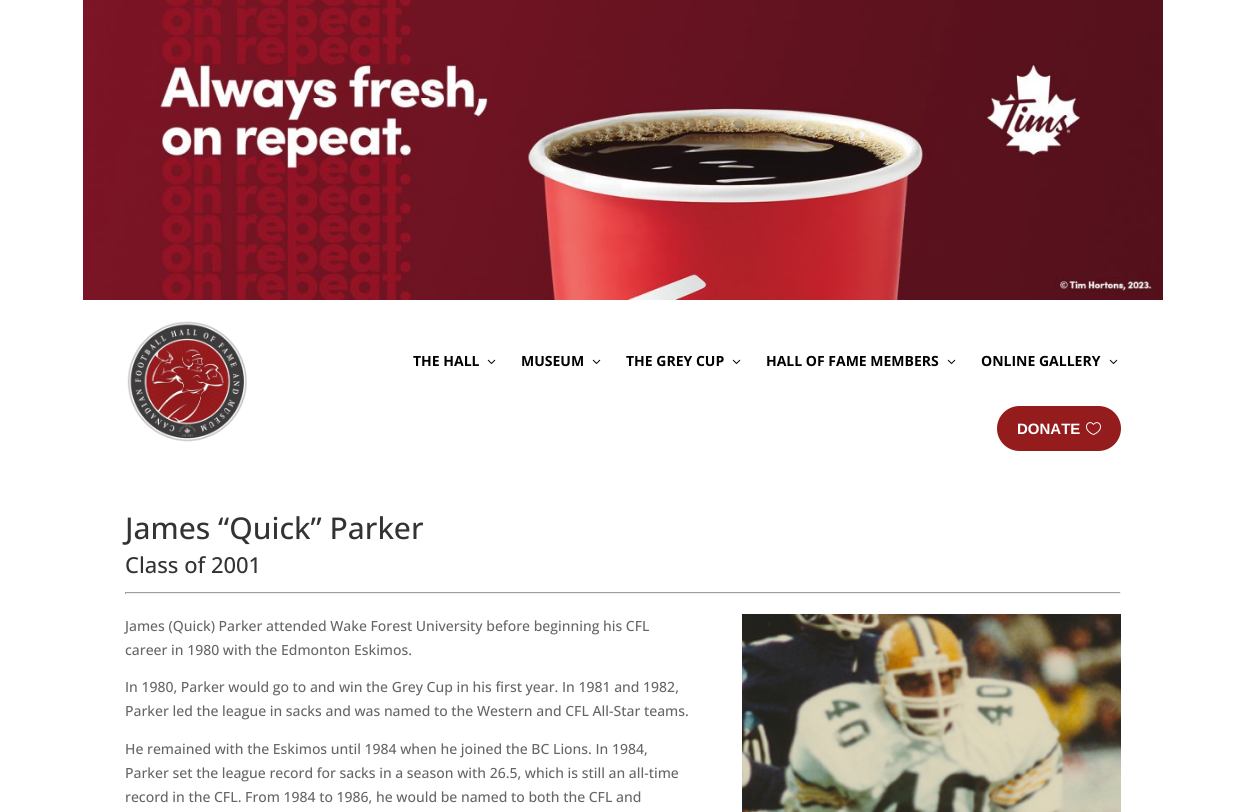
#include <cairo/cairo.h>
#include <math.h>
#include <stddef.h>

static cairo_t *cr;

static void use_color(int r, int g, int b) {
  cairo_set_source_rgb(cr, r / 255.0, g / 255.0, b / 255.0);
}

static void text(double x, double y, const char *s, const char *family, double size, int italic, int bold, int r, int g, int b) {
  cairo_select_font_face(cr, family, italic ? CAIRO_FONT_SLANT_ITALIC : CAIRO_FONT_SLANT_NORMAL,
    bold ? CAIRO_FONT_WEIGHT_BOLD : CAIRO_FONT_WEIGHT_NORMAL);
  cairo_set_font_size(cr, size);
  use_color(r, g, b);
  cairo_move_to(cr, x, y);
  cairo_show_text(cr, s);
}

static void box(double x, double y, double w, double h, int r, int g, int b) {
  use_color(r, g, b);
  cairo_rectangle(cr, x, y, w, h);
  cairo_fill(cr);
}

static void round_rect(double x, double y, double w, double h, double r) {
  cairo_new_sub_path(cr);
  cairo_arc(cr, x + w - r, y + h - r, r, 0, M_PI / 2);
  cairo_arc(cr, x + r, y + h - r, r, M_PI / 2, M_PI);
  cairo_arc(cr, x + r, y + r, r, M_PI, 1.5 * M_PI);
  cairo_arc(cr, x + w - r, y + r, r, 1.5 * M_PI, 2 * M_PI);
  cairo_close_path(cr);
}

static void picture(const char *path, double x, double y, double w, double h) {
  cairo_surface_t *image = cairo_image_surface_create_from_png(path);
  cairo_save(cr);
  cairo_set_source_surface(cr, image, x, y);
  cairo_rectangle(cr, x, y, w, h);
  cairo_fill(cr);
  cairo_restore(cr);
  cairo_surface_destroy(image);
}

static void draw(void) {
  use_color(255, 255, 255);
  cairo_paint(cr);
  picture("img_01.png", 83, 0, 1080, 300);
  picture("img_02.png", 127, 321, 120, 121);
  picture("img_03.png", 487, 359, 9, 5);
  picture("img_03.png", 592, 359, 9, 5);
  picture("img_03.png", 732, 359, 9, 5);
  picture("img_03.png", 947, 359, 9, 5);
  picture("img_03.png", 1109, 359, 9, 5);
  use_color(149, 28, 29);
  round_rect(997, 406, 124, 45, 22.5);
  cairo_fill(cr);
  picture("img_04.png", 1086, 422, 15, 13);
  box(125, 592, 996, 1, 159, 159, 159);
  box(1120, 592, 1, 2, 238, 238, 238);
  box(125, 593, 996, 1, 238, 238, 238);
  box(125, 592, 1, 2, 159, 159, 159);
  picture("img_05.png", 742, 614, 379, 198);
  text(413, 366, "THE HALL", "Open Sans", 14, 0, 1, 0, 0, 0);
  text(521, 366, "MUSEUM", "Open Sans", 14, 0, 1, 0, 0, 0);
  text(626, 366, "THE GREY CUP", "Open Sans", 14, 0, 1, 0, 0, 0);
  text(766, 366, "HALL OF FAME MEMBERS", "Open Sans", 14, 0, 1, 0, 0, 0);
  text(981, 366, "ONLINE GALLERY", "Open Sans", 14, 0, 1, 0, 0, 0);
  text(1017, 434, "DONATE", "Liberation Sans", 15, 0, 1, 255, 255, 255);
  text(125, 539, "James “Quick” Parker", "Open Sans Medium", 30, 0, 0, 51, 51, 51);
  text(125, 573, "Class of 2001", "Open Sans Medium", 22, 0, 0, 51, 51, 51);
  text(125, 631, "James (Quick) Parker attended Wake Forest University before beginning his CFL", "Open Sans Medium", 14, 0, 0, 102, 102, 102);
  text(125, 655, "career in 1980 with the Edmonton Eskimos.", "Open Sans Medium", 14, 0, 0, 102, 102, 102);
  text(125, 692, "In 1980, Parker would go to and win the Grey Cup in his first year. In 1981 and 1982,", "Open Sans Medium", 14, 0, 0, 102, 102, 102);
  text(125, 716, "Parker led the league in sacks and was named to the Western and CFL All-Star teams.", "Open Sans Medium", 14, 0, 0, 102, 102, 102);
  text(125, 754, "He remained with the Eskimos until 1984 when he joined the BC Lions. In 1984,", "Open Sans Medium", 14, 0, 0, 102, 102, 102);
  text(125, 778, "Parker set the league record for sacks in a season with 26.5, which is still an all-time", "Open Sans Medium", 14, 0, 0, 102, 102, 102);
  text(125, 802, "record in the CFL. From 1984 to 1986, he would be named to both the CFL and", "Open Sans Medium", 14, 0, 0, 102, 102, 102);
}

int main(void) {
  cairo_surface_t *surface = cairo_image_surface_create(CAIRO_FORMAT_RGB24, 1245, 812);
  cr = cairo_create(surface);
  cairo_font_options_t *options = cairo_font_options_create();
  cairo_font_options_set_hint_metrics(options, CAIRO_HINT_METRICS_OFF);
  cairo_font_options_set_hint_style(options, CAIRO_HINT_STYLE_NONE);
  cairo_set_font_options(cr, options);
  cairo_set_miter_limit(cr, 4);
  draw();
  cairo_surface_write_to_png(surface, "out.png");
  cairo_font_options_destroy(options);
  cairo_destroy(cr);
  cairo_surface_destroy(surface);
  return 0;
}
